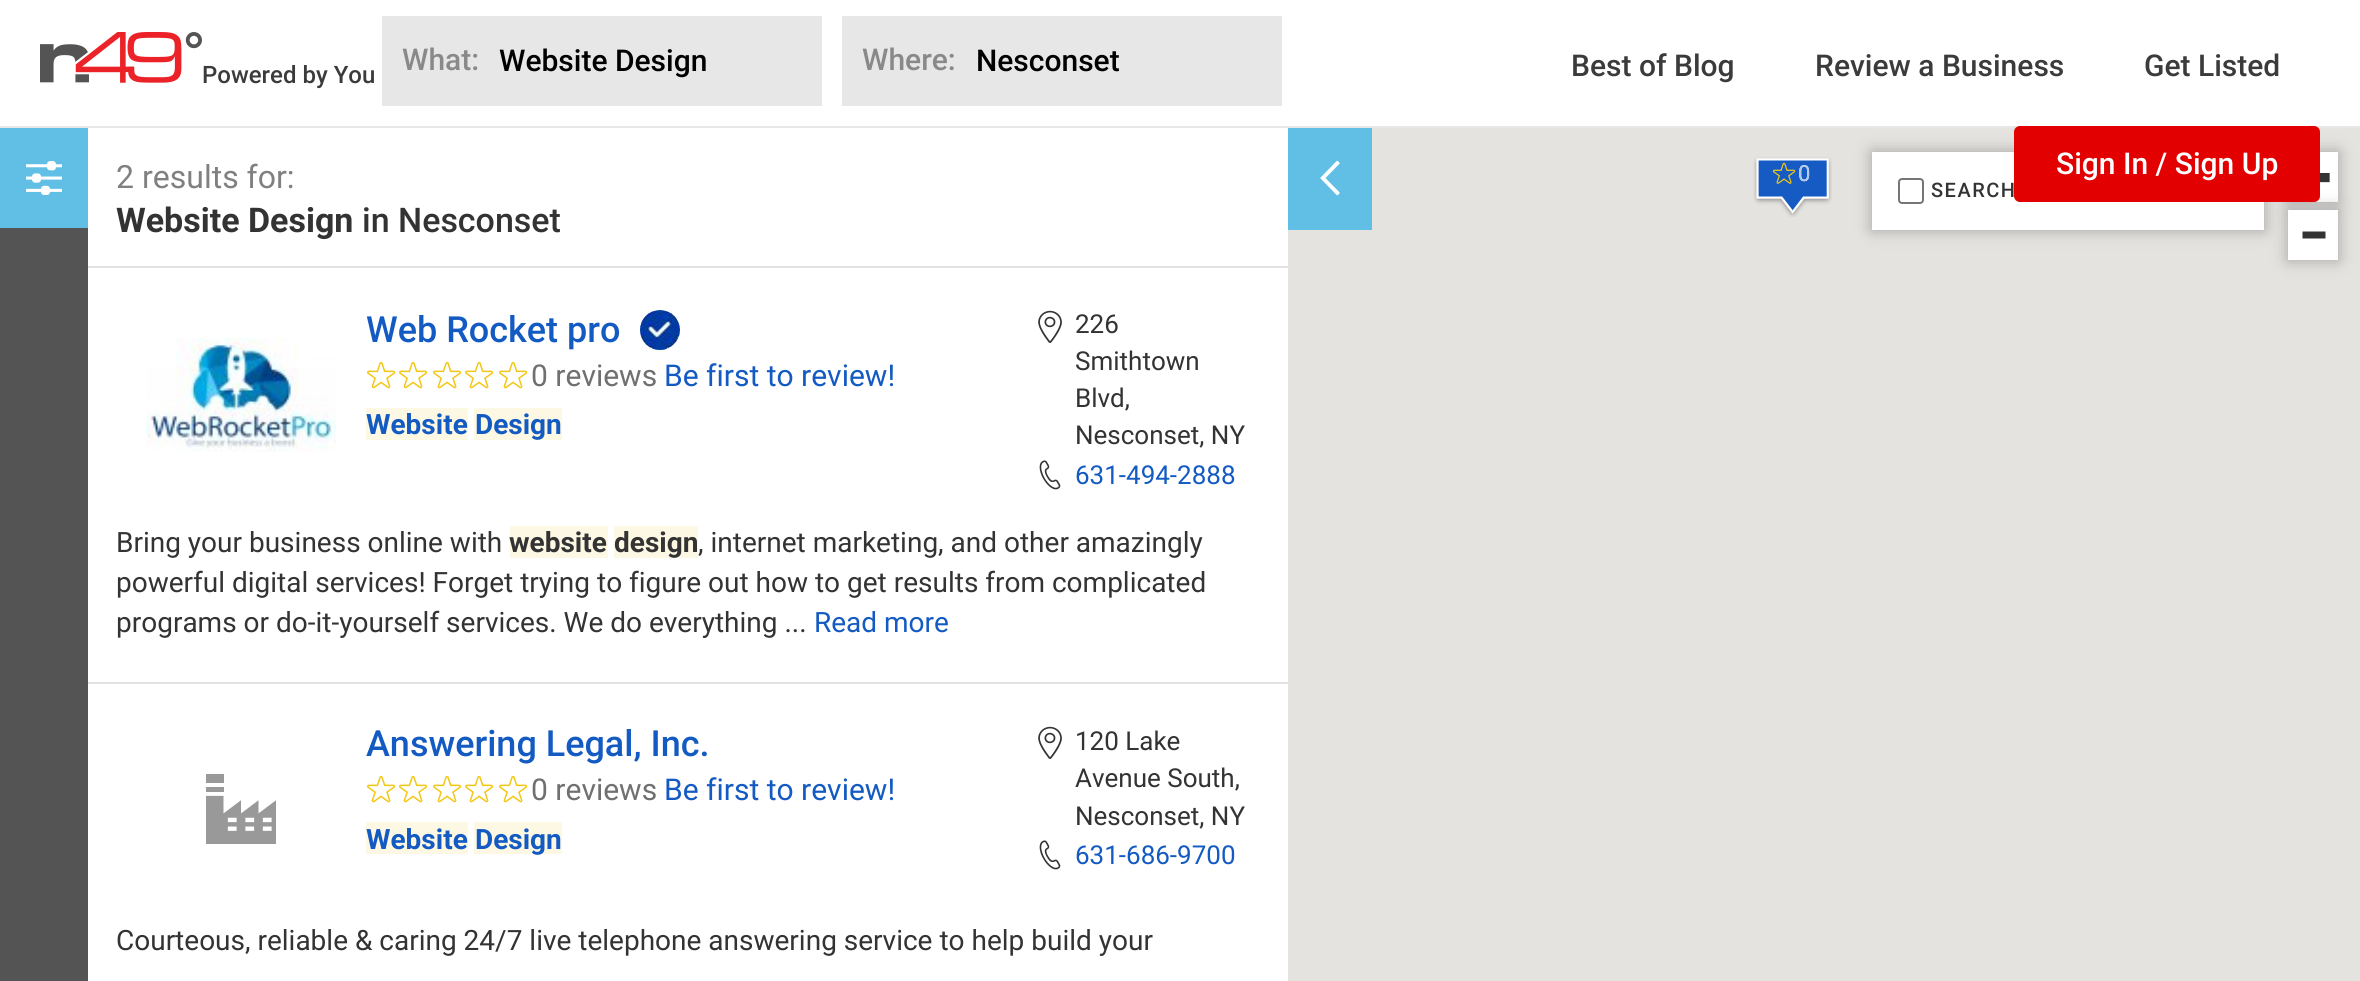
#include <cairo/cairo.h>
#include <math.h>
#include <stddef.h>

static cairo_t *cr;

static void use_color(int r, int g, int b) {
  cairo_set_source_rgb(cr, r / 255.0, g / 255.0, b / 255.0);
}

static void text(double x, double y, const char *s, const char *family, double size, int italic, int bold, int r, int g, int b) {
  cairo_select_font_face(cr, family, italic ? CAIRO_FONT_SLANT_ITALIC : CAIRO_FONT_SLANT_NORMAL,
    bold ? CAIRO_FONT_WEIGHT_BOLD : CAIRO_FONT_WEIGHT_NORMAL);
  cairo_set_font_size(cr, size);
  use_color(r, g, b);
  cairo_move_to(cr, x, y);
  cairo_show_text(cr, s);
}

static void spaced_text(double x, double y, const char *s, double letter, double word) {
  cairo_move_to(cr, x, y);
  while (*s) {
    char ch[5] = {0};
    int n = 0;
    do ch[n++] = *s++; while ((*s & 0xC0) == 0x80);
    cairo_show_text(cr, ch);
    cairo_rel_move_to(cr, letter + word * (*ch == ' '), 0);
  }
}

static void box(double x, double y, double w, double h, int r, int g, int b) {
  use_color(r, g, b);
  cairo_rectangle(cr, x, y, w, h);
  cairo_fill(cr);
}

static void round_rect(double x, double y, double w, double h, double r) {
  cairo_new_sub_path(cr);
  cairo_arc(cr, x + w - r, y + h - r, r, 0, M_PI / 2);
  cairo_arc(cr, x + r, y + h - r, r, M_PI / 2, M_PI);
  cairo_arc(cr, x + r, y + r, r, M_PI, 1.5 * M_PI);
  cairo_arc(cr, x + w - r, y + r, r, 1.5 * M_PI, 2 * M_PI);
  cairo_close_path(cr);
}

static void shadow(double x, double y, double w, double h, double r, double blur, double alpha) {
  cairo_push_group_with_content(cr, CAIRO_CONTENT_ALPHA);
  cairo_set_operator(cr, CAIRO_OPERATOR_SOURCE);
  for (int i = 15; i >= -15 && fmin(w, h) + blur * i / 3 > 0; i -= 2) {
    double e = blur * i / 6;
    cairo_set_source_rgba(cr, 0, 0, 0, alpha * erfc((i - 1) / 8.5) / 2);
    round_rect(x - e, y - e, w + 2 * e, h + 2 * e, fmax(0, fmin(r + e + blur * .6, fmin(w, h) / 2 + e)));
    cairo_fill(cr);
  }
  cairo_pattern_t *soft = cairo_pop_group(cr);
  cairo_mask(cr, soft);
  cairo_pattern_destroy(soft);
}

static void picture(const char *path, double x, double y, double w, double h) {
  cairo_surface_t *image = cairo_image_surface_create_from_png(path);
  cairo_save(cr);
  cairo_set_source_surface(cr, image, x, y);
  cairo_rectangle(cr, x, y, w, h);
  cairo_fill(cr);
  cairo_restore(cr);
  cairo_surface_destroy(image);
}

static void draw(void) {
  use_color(255, 255, 255);
  cairo_paint(cr);
  box(1288, 128, 1072, 853, 229, 227, 223);
  use_color(163, 163, 163);
  shadow(1872, 152, 392, 78, 0, 8, 1);
  box(1872, 152, 392, 78, 255, 255, 255);
  use_color(163, 163, 163);
  shadow(2288, 152, 50, 50, 0, 8, 1);
  box(0, 126, 2360, 2, 231, 231, 231);
  picture("img_01.png", 40, 32, 162, 51);
  box(382, 16, 440, 90, 231, 231, 231);
  box(842, 16, 440, 90, 231, 231, 231);
  box(0, 228, 88, 753, 84, 84, 84);
  box(0, 128, 88, 100, 97, 191, 229);
  picture("img_02.png", 26, 161, 36, 34);
  box(88, 266, 1200, 2, 225, 225, 225);
  box(88, 682, 1200, 2, 225, 225, 225);
  picture("img_03.png", 146, 338, 190, 114);
  picture("img_04.png", 640, 310, 40, 40);
  picture("img_05.png", 367, 362, 29, 27);
  picture("img_05.png", 399, 362, 29, 27);
  picture("img_05.png", 433, 362, 29, 27);
  picture("img_05.png", 465, 362, 29, 27);
  picture("img_05.png", 499, 362, 29, 27);
  box(366, 408, 102, 32, 252, 248, 227);
  box(474, 408, 88, 32, 252, 248, 227);
  picture("img_06.png", 1038, 310, 24, 33);
  picture("img_07.png", 1039, 460, 22, 30);
  box(510, 526, 98, 32, 252, 248, 227);
  box(614, 526, 84, 32, 252, 248, 227);
  picture("img_08.png", 206, 774, 70, 70);
  picture("img_05.png", 367, 776, 29, 27);
  picture("img_05.png", 399, 776, 29, 27);
  picture("img_05.png", 433, 776, 29, 27);
  picture("img_05.png", 465, 776, 29, 27);
  picture("img_05.png", 499, 776, 29, 27);
  box(366, 822, 102, 32, 252, 248, 227);
  box(474, 822, 88, 32, 252, 248, 227);
  picture("img_06.png", 1038, 726, 24, 33);
  picture("img_07.png", 1039, 840, 22, 30);
  box(1288, 128, 84, 102, 97, 191, 229);
  picture("img_09.png", 1320, 160, 20, 36);
  picture("img_10.png", 1753, 157, 79, 60);
  picture("img_11.png", 1772, 162, 24, 22);
  box(2314, 152, 24, 50, 255, 255, 255);
  picture("img_12.png", 2320, 172, 10, 11);
  use_color(163, 163, 163);
  shadow(2288, 210, 50, 50, 0, 8, 1);
  box(2288, 210, 50, 50, 255, 255, 255);
  use_color(51, 51, 51);
  cairo_new_path(cr);
  cairo_move_to(cr, 2309.5, 238.5);
  cairo_line_to(cr, 2302.5, 238.5);
  cairo_line_to(cr, 2302.5, 231.5);
  cairo_line_to(cr, 2325.5, 231.5);
  cairo_line_to(cr, 2325.5, 238.5);
  cairo_close_path(cr);
  cairo_fill(cr);
  round_rect(1899, 179, 24, 24, 3);
  use_color(118, 118, 118);
  cairo_stroke(cr);
  text(202, 83, "Powered by You", "Roboto Medium", 24, 0, 0, 59, 59, 59);
  text(402, 70, "What:", "Roboto Medium", 30, 0, 0, 137, 137, 137);
  text(499, 71, "Website Design", "Roboto Medium", 30, 0, 0, 0, 0, 0);
  text(862, 70, "Where:", "Roboto Medium", 30, 0, 0, 137, 137, 137);
  text(976, 71, "Nesconset", "Roboto Medium", 30, 0, 0, 0, 0, 0);
  text(1571, 76, "Best of Blog", "Roboto Medium", 30, 0, 0, 59, 59, 59);
  text(1815, 76, "Review a Business", "Roboto Medium", 30, 0, 0, 59, 59, 59);
  text(2144, 76, "Get Listed", "Roboto Medium", 30, 0, 0, 59, 59, 59);
  text(116, 188, "2 results for:", "Roboto", 32, 0, 0, 128, 128, 128);
  text(116, 232, "Website Design", "Roboto", 34, 0, 1, 51, 51, 51);
  text(362, 232, "in Nesconset", "Roboto Medium", 34, 0, 0, 51, 51, 51);
  text(366, 342, "Web Rocket pro", "Roboto Medium", 36, 0, 0, 19, 90, 194);
  text(531, 386, "0 reviews", "Roboto", 30, 0, 0, 112, 112, 112);
  text(664, 386, "Be first to review!", "Roboto", 30, 0, 0, 19, 90, 194);
  text(366, 434, "Website", "Roboto", 28, 0, 1, 19, 90, 194);
  text(475, 434, "Design", "Roboto", 28, 0, 1, 19, 90, 194);
  text(1075, 333, "226", "Roboto", 26, 0, 0, 51, 51, 51);
  text(1075, 370, "Smithtown", "Roboto", 26, 0, 0, 51, 51, 51);
  text(1075, 407, "Blvd,", "Roboto", 26, 0, 0, 51, 51, 51);
  text(1075, 444, "Nesconset, NY", "Roboto", 26, 0, 0, 51, 51, 51);
  text(1075, 484, "631-494-2888", "Roboto", 26, 0, 0, 19, 90, 194);
  text(116, 552, "Bring your business online with", "Roboto", 28, 0, 0, 51, 51, 51);
  text(509, 552, "website", "Roboto", 28, 0, 1, 51, 51, 51);
  text(614, 552, "design", "Roboto", 28, 0, 1, 51, 51, 51);
  text(698, 552, ", internet marketing, and other amazingly", "Roboto", 28, 0, 0, 51, 51, 51);
  text(116, 592, "powerful digital services! Forget trying to figure out how to get results from complicated", "Roboto", 28, 0, 0, 51, 51, 51);
  text(116, 632, "programs or do-it-yourself services. We do everything ...", "Roboto", 28, 0, 0, 51, 51, 51);
  text(814, 632, "Read more", "Roboto", 28, 0, 0, 19, 90, 194);
  text(366, 756, "Answering Legal, Inc.", "Roboto Medium", 36, 0, 0, 19, 90, 194);
  text(531, 800, "0 reviews", "Roboto", 30, 0, 0, 112, 112, 112);
  text(664, 800, "Be first to review!", "Roboto", 30, 0, 0, 19, 90, 194);
  text(366, 849, "Website", "Roboto", 28, 0, 1, 19, 90, 194);
  text(475, 849, "Design", "Roboto", 28, 0, 1, 19, 90, 194);
  text(1075, 750, "120 Lake", "Roboto", 26, 0, 0, 51, 51, 51);
  text(1075, 787, "Avenue South,", "Roboto", 26, 0, 0, 51, 51, 51);
  text(1075, 825, "Nesconset, NY", "Roboto", 26, 0, 0, 51, 51, 51);
  text(1075, 864, "631-686-9700", "Roboto", 26, 0, 0, 19, 90, 194);
  text(116, 950, "Courteous, reliable & caring 24/7 live telephone answering service to help build your", "Roboto", 28, 0, 0, 51, 51, 51);
  text(1798, 181, "0", "Roboto", 22, 0, 0, 255, 255, 255);
  text(1798, 181, "0", "Roboto", 22, 0, 0, 177, 199, 235);
  cairo_select_font_face(cr, "Roboto Medium", CAIRO_FONT_SLANT_NORMAL, CAIRO_FONT_WEIGHT_NORMAL);
  cairo_set_font_size(cr, 20);
  use_color(51, 51, 51);
  spaced_text(1931, 197, "SEARCH", 1.5, 0);
  use_color(226, 0, 0);
  round_rect(2015, 127, 304, 74, 5);
  cairo_fill_preserve(cr);
  cairo_stroke(cr);
  text(2056, 174, "Sign In / Sign Up", "Roboto Medium", 30, 0, 0, 255, 255, 255);
}

int main(void) {
  cairo_surface_t *surface = cairo_image_surface_create(CAIRO_FORMAT_RGB24, 2360, 981);
  cr = cairo_create(surface);
  cairo_font_options_t *options = cairo_font_options_create();
  cairo_font_options_set_hint_metrics(options, CAIRO_HINT_METRICS_OFF);
  cairo_font_options_set_hint_style(options, CAIRO_HINT_STYLE_NONE);
  cairo_set_font_options(cr, options);
  cairo_set_miter_limit(cr, 4);
  draw();
  cairo_surface_write_to_png(surface, "out.png");
  cairo_font_options_destroy(options);
  cairo_destroy(cr);
  cairo_surface_destroy(surface);
  return 0;
}
